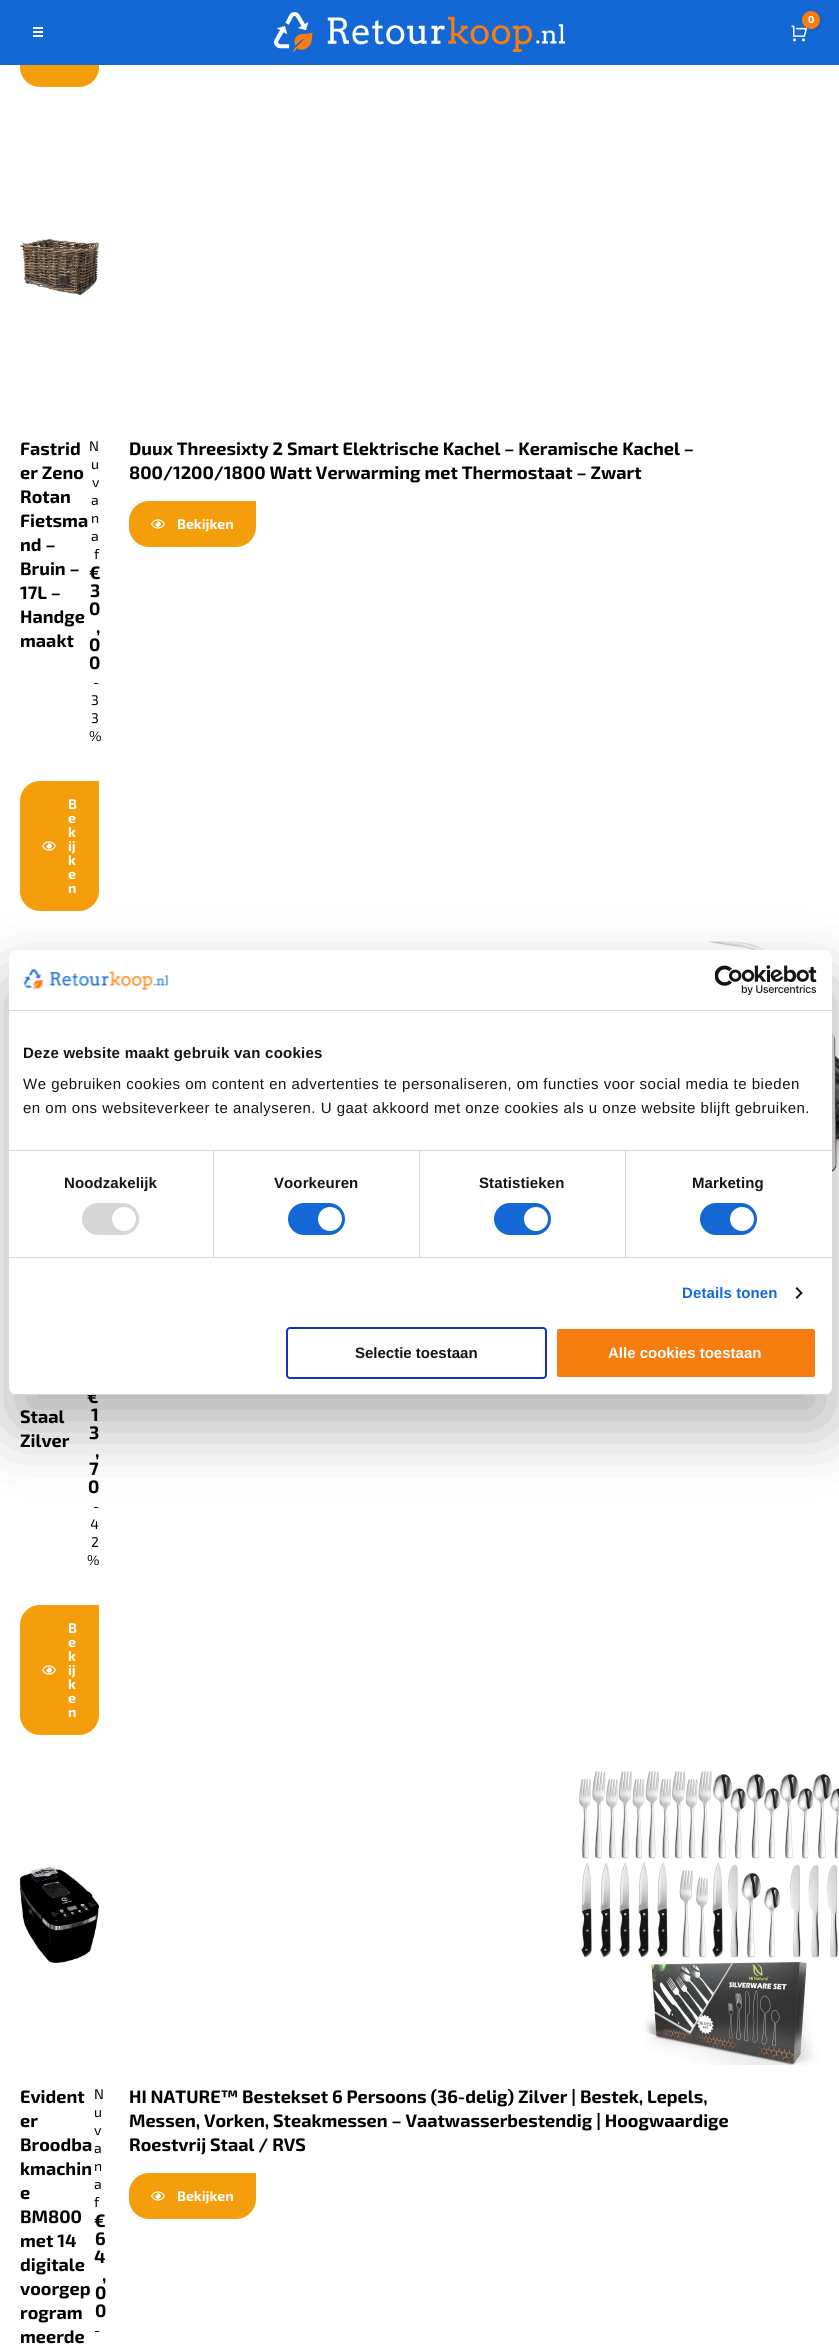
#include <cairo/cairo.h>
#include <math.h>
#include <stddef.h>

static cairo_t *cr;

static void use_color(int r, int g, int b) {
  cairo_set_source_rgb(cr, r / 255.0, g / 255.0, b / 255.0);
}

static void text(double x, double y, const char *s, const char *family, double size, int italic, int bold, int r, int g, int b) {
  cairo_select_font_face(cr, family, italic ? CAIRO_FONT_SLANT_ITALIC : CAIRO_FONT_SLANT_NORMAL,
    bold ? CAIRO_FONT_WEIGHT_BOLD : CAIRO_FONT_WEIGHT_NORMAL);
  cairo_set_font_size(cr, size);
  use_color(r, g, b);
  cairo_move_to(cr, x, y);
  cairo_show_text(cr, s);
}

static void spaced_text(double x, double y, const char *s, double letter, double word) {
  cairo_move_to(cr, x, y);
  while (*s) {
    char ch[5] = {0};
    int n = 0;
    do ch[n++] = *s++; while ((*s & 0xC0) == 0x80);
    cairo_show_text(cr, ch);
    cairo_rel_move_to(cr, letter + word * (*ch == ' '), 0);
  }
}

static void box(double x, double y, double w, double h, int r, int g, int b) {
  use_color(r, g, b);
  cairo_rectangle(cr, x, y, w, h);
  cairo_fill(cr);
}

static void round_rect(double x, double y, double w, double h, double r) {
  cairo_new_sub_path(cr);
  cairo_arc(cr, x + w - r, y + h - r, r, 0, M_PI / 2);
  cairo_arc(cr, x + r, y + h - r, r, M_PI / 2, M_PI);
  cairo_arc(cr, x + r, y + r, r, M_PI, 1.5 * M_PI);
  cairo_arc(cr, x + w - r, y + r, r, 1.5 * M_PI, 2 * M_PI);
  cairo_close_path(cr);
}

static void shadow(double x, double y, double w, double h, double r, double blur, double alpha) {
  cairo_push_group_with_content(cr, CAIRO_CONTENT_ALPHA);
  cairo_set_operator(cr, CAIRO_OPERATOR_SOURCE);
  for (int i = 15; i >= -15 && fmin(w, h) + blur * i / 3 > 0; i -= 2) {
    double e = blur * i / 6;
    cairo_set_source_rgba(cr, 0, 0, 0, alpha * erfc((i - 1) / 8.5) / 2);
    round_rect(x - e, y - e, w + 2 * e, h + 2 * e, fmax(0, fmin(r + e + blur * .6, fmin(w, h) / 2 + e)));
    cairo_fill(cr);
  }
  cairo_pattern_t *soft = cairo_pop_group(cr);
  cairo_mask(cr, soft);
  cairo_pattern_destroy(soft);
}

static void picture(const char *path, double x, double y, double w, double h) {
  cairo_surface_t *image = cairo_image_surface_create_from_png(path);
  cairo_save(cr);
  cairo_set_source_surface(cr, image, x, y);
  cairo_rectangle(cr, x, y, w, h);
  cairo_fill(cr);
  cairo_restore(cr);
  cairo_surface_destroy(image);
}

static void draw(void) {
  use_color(255, 255, 255);
  cairo_paint(cr);
  use_color(245, 158, 11);
  cairo_new_path(cr);
  cairo_move_to(cr, 40, -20);
  cairo_line_to(cr, 99, -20);
  cairo_line_to(cr, 99, 67);
  cairo_curve_to(cr, 99, 78, 90, 87, 79, 87);
  cairo_line_to(cr, 40, 87);
  cairo_curve_to(cr, 29, 87, 20, 78, 20, 67);
  cairo_line_to(cr, 20, 0);
  cairo_curve_to(cr, 20, -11, 29, -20, 40, -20);
  cairo_close_path(cr);
  cairo_fill(cr);
  box(0, 0, 839, 65, 20, 104, 213);
  picture("img_01.png", 274, 12, 291, 40);
  picture("img_02.png", 791, 25, 16, 17);
  use_color(0, 0, 0);
  shadow(803, 12, 18, 18, 9, 1.5, 0.15);
  use_color(247, 125, 17);
  cairo_arc(cr, 811, 20, 9, 0, 2 * M_PI);
  cairo_fill(cr);
  picture("img_03.png", 33, 27, 10, 10);
  picture("img_04.png", 20, 239, 79, 56);
  use_color(245, 158, 11);
  cairo_new_path(cr);
  cairo_move_to(cr, 40, 781);
  cairo_line_to(cr, 99, 781);
  cairo_line_to(cr, 99, 891);
  cairo_curve_to(cr, 99, 902, 90, 911, 79, 911);
  cairo_line_to(cr, 40, 911);
  cairo_curve_to(cr, 29, 911, 20, 902, 20, 891);
  cairo_line_to(cr, 20, 801);
  cairo_curve_to(cr, 20, 790, 29, 781, 40, 781);
  cairo_close_path(cr);
  cairo_fill(cr);
  picture("img_05.png", 42, 841, 14, 10);
  cairo_new_path(cr);
  cairo_move_to(cr, 149, 501);
  cairo_line_to(cr, 256, 501);
  cairo_line_to(cr, 256, 527);
  cairo_curve_to(cr, 256, 538, 247, 547, 236, 547);
  cairo_line_to(cr, 149, 547);
  cairo_curve_to(cr, 138, 547, 129, 538, 129, 527);
  cairo_line_to(cr, 129, 521);
  cairo_curve_to(cr, 129, 510, 138, 501, 149, 501);
  cairo_close_path(cr);
  cairo_fill(cr);
  picture("img_05.png", 151, 519, 14, 10);
  picture("img_06.png", 581, 941, 258, 300);
  cairo_new_path(cr);
  cairo_move_to(cr, 40, 1605);
  cairo_line_to(cr, 99, 1605);
  cairo_line_to(cr, 99, 1715);
  cairo_curve_to(cr, 99, 1726, 90, 1735, 79, 1735);
  cairo_line_to(cr, 40, 1735);
  cairo_curve_to(cr, 29, 1735, 20, 1726, 20, 1715);
  cairo_line_to(cr, 20, 1625);
  cairo_curve_to(cr, 20, 1614, 29, 1605, 40, 1605);
  cairo_close_path(cr);
  cairo_fill(cr);
  picture("img_05.png", 42, 1665, 14, 10);
  picture("img_07.png", 20, 1867, 79, 96);
  picture("img_08.png", 579, 1771, 260, 294);
  cairo_new_path(cr);
  cairo_move_to(cr, 149, 2173);
  cairo_line_to(cr, 256, 2173);
  cairo_line_to(cr, 256, 2199);
  cairo_curve_to(cr, 256, 2210, 247, 2219, 236, 2219);
  cairo_line_to(cr, 149, 2219);
  cairo_curve_to(cr, 138, 2219, 129, 2210, 129, 2199);
  cairo_line_to(cr, 129, 2193);
  cairo_curve_to(cr, 129, 2182, 138, 2173, 149, 2173);
  cairo_close_path(cr);
  cairo_fill(cr);
  picture("img_05.png", 151, 2191, 14, 10);
  use_color(0, 0, 0);
  shadow(9, 982, 823, 445, 8, 34, 0.3);
  text(808, 23, "0", "Exo 2", 10, 0, 1, 255, 255, 255);
  text(20, 455, "Fastrid", "Exo 2", 18, 0, 1, 0, 0, 0);
  text(20, 479, "er Zeno", "Exo 2", 18, 0, 1, 0, 0, 0);
  text(20, 503, "Rotan", "Exo 2", 18, 0, 1, 0, 0, 0);
  text(20, 527, "Fietsma", "Exo 2", 18, 0, 1, 0, 0, 0);
  text(20, 551, "nd –", "Exo 2", 18, 0, 1, 0, 0, 0);
  text(20, 575, "Bruin –", "Exo 2", 18, 0, 1, 0, 0, 0);
  text(20, 599, "17L –", "Exo 2", 18, 0, 1, 0, 0, 0);
  text(20, 623, "Handge", "Exo 2", 18, 0, 1, 0, 0, 0);
  text(20, 647, "maakt", "Exo 2", 18, 0, 1, 0, 0, 0);
  text(89, 451, "N", "Exo 2", 14, 0, 0, 0, 0, 0);
  text(91, 469, "u", "Exo 2", 14, 0, 0, 0, 0, 0);
  text(92, 487, "v", "Exo 2", 14, 0, 0, 0, 0, 0);
  text(91, 505, "a", "Exo 2", 14, 0, 0, 0, 0, 0);
  text(91, 523, "n", "Exo 2", 14, 0, 0, 0, 0, 0);
  text(91, 541, "a", "Exo 2", 14, 0, 0, 0, 0, 0);
  text(94, 559, "f", "Exo 2", 14, 0, 0, 0, 0, 0);
  text(89, 579, "€", "Exo 2", 18, 0, 1, 0, 0, 0);
  text(90, 597, "3", "Exo 2", 18, 0, 1, 0, 0, 0);
  text(89, 615, "0", "Exo 2", 18, 0, 1, 0, 0, 0);
  text(96, 633, ",", "Exo 2", 18, 0, 1, 0, 0, 0);
  text(89, 651, "0", "Exo 2", 18, 0, 1, 0, 0, 0);
  text(89, 669, "0", "Exo 2", 18, 0, 1, 0, 0, 0);
  text(93, 687, "-", "Exo 2", 14, 0, 0, 0, 0, 0);
  text(91, 705, "3", "Exo 2", 14, 0, 0, 0, 0, 0);
  text(91, 723, "3", "Exo 2", 14, 0, 0, 0, 0, 0);
  text(89, 741, "%", "Exo 2", 14, 0, 0, 0, 0, 0);
  text(68, 809, "B", "Exo 2", 14, 0, 1, 255, 255, 255);
  text(68, 823, "e", "Exo 2", 14, 0, 1, 255, 255, 255);
  text(68, 837, "k", "Exo 2", 14, 0, 1, 255, 255, 255);
  text(68, 851, "ij", "Exo 2", 14, 0, 1, 255, 255, 255);
  text(68, 865, "k", "Exo 2", 14, 0, 1, 255, 255, 255);
  text(68, 879, "e", "Exo 2", 14, 0, 1, 255, 255, 255);
  text(68, 893, "n", "Exo 2", 14, 0, 1, 255, 255, 255);
  text(129, 455, "Duux Threesixty 2 Smart Elektrische Kachel – Keramische Kachel –", "Exo 2", 18, 0, 1, 0, 0, 0);
  text(129, 479, "800/1200/1800 Watt Verwarming met Thermostaat – Zwart", "Exo 2", 18, 0, 1, 0, 0, 0);
  text(177, 529, "Bekijken", "Exo 2", 14, 0, 1, 255, 255, 255);
  text(20, 1423, "Staal", "Exo 2", 18, 0, 1, 0, 0, 0);
  text(20, 1447, "Zilver", "Exo 2", 18, 0, 1, 0, 0, 0);
  text(87, 1403, "€", "Exo 2", 18, 0, 1, 0, 0, 0);
  text(91, 1421, "1", "Exo 2", 18, 0, 1, 0, 0, 0);
  text(89, 1439, "3", "Exo 2", 18, 0, 1, 0, 0, 0);
  text(95, 1457, ",", "Exo 2", 18, 0, 1, 0, 0, 0);
  text(89, 1475, "7", "Exo 2", 18, 0, 1, 0, 0, 0);
  text(88, 1493, "0", "Exo 2", 18, 0, 1, 0, 0, 0);
  text(93, 1511, "-", "Exo 2", 14, 0, 0, 0, 0, 0);
  text(90, 1529, "4", "Exo 2", 14, 0, 0, 0, 0, 0);
  text(91, 1547, "2", "Exo 2", 14, 0, 0, 0, 0, 0);
  text(87, 1565, "%", "Exo 2", 14, 0, 0, 0, 0, 0);
  text(68, 1633, "B", "Exo 2", 14, 0, 1, 255, 255, 255);
  text(68, 1647, "e", "Exo 2", 14, 0, 1, 255, 255, 255);
  text(68, 1661, "k", "Exo 2", 14, 0, 1, 255, 255, 255);
  text(68, 1675, "ij", "Exo 2", 14, 0, 1, 255, 255, 255);
  text(68, 1689, "k", "Exo 2", 14, 0, 1, 255, 255, 255);
  text(68, 1703, "e", "Exo 2", 14, 0, 1, 255, 255, 255);
  text(68, 1717, "n", "Exo 2", 14, 0, 1, 255, 255, 255);
  text(20, 2103, "Evident", "Exo 2", 18, 0, 1, 0, 0, 0);
  text(20, 2127, "er", "Exo 2", 18, 0, 1, 0, 0, 0);
  text(20, 2151, "Broodba", "Exo 2", 18, 0, 1, 0, 0, 0);
  text(20, 2175, "kmachin", "Exo 2", 18, 0, 1, 0, 0, 0);
  text(20, 2199, "e", "Exo 2", 18, 0, 1, 0, 0, 0);
  text(20, 2223, "BM800", "Exo 2", 18, 0, 1, 0, 0, 0);
  text(20, 2247, "met 14", "Exo 2", 18, 0, 1, 0, 0, 0);
  text(20, 2271, "digitale", "Exo 2", 18, 0, 1, 0, 0, 0);
  text(20, 2295, "voorgep", "Exo 2", 18, 0, 1, 0, 0, 0);
  text(20, 2319, "rogram", "Exo 2", 18, 0, 1, 0, 0, 0);
  text(20, 2343, "meerde", "Exo 2", 18, 0, 1, 0, 0, 0);
  text(94, 2099, "N", "Exo 2", 14, 0, 0, 0, 0, 0);
  text(94, 2117, "u", "Exo 2", 14, 0, 0, 0, 0, 0);
  text(94, 2135, "v", "Exo 2", 14, 0, 0, 0, 0, 0);
  text(94, 2153, "a", "Exo 2", 14, 0, 0, 0, 0, 0);
  text(94, 2171, "n", "Exo 2", 14, 0, 0, 0, 0, 0);
  text(94, 2189, "a", "Exo 2", 14, 0, 0, 0, 0, 0);
  text(94, 2207, "f", "Exo 2", 14, 0, 0, 0, 0, 0);
  text(94, 2227, "€", "Exo 2", 18, 0, 1, 0, 0, 0);
  text(95, 2245, "6", "Exo 2", 18, 0, 1, 0, 0, 0);
  text(94, 2263, "4", "Exo 2", 18, 0, 1, 0, 0, 0);
  text(102, 2281, ",", "Exo 2", 18, 0, 1, 0, 0, 0);
  text(95, 2299, "0", "Exo 2", 18, 0, 1, 0, 0, 0);
  text(95, 2317, "0", "Exo 2", 18, 0, 1, 0, 0, 0);
  text(94, 2335, "-", "Exo 2", 14, 0, 0, 0, 0, 0);
  text(129, 2103, "HI NATURE™ Bestekset 6 Persoons (36-delig) Zilver | Bestek, Lepels,", "Exo 2", 18, 0, 1, 0, 0, 0);
  text(129, 2127, "Messen, Vorken, Steakmessen – Vaatwasserbestendig | Hoogwaardige", "Exo 2", 18, 0, 1, 0, 0, 0);
  text(129, 2151, "Roestvrij Staal / RVS", "Exo 2", 18, 0, 1, 0, 0, 0);
  text(177, 2201, "Bekijken", "Exo 2", 14, 0, 1, 255, 255, 255);
  round_rect(9, 950, 823, 445, 8);
  cairo_fill(cr);
  box(9, 1010, 823, 1, 214, 214, 214);
  picture("img_09.png", 23, 969, 146, 22);
  picture("img_10.png", 715, 965, 102, 30);
  box(9, 1150, 823, 1, 214, 214, 214);
  cairo_select_font_face(cr, "Liberation Sans", CAIRO_FONT_SLANT_NORMAL, CAIRO_FONT_WEIGHT_BOLD);
  cairo_set_font_size(cr, 15);
  use_color(20, 20, 20);
  spaced_text(23, 1058, "Deze website maakt gebruik van cookies", 0.25, 0);
  cairo_select_font_face(cr, "Liberation Sans", CAIRO_FONT_SLANT_NORMAL, CAIRO_FONT_WEIGHT_NORMAL);
  spaced_text(23, 1089, "We gebruiken cookies om content en advertenties te personaliseren, om functies voor social media te bieden", 0.5, 0);
  spaced_text(23, 1113, "en om ons websiteverkeer te analyseren. U gaat akkoord met onze cookies als u onze website blijft gebruiken.", 0.5, 0);
  box(9, 1257, 823, 1, 214, 214, 214);
  box(213, 1151, 1, 106, 214, 214, 214);
  cairo_select_font_face(cr, "Liberation Sans", CAIRO_FONT_SLANT_NORMAL, CAIRO_FONT_WEIGHT_BOLD);
  use_color(20, 20, 20);
  spaced_text(64, 1188, "Noodzakelijk", 0.1, 0);
  use_color(214, 214, 214);
  round_rect(82, 1203, 57, 32, 16);
  cairo_fill(cr);
  use_color(255, 255, 255);
  cairo_arc(cr, 124, 1219, 12, 0, 2 * M_PI);
  cairo_fill(cr);
  box(419, 1151, 1, 106, 214, 214, 214);
  use_color(20, 20, 20);
  spaced_text(274, 1188, "Voorkeuren", 0.1, 0);
  use_color(20, 104, 213);
  round_rect(288, 1203, 57, 32, 16);
  cairo_fill(cr);
  use_color(255, 255, 255);
  cairo_arc(cr, 330, 1219, 12, 0, 2 * M_PI);
  cairo_fill(cr);
  box(625, 1151, 1, 106, 214, 214, 214);
  use_color(20, 20, 20);
  spaced_text(479, 1188, "Statistieken", 0.1, 0);
  use_color(20, 104, 213);
  round_rect(494, 1203, 57, 32, 16);
  cairo_fill(cr);
  use_color(255, 255, 255);
  cairo_arc(cr, 536, 1219, 12, 0, 2 * M_PI);
  cairo_fill(cr);
  use_color(20, 20, 20);
  spaced_text(692, 1188, "Marketing", 0.1, 0);
  use_color(20, 104, 213);
  round_rect(700, 1203, 57, 32, 16);
  cairo_fill(cr);
  use_color(255, 255, 255);
  cairo_arc(cr, 742, 1219, 12, 0, 2 * M_PI);
  cairo_fill(cr);
  use_color(20, 104, 213);
  spaced_text(682, 1298, "Details tonen", 0.1, 0);
  use_color(20, 20, 20);
  cairo_new_path(cr);
  cairo_move_to(cr, 797, 1287);
  cairo_line_to(cr, 802.5, 1293);
  cairo_line_to(cr, 801.5, 1294.5);
  cairo_line_to(cr, 795.5, 1288.5);
  cairo_close_path(cr);
  cairo_fill(cr);
  cairo_new_path(cr);
  cairo_move_to(cr, 801.5, 1291.5);
  cairo_line_to(cr, 802.5, 1293);
  cairo_line_to(cr, 797, 1299);
  cairo_line_to(cr, 795.5, 1297.5);
  cairo_close_path(cr);
  cairo_fill(cr);
  cairo_save(cr);
  round_rect(9, 950, 823, 445, 8);
  cairo_clip(cr);
  box(9, 1394, 823, 1, 214, 214, 214);
  cairo_restore(cr);
  round_rect(287, 1328, 259, 50, 3);
  use_color(16, 50, 207);
  cairo_stroke(cr);
  text(355, 1358, "Selectie toestaan", "Liberation Sans", 15, 0, 1, 20, 20, 20);
  use_color(247, 125, 17);
  round_rect(556, 1328, 260, 50, 3);
  cairo_fill_preserve(cr);
  use_color(255, 255, 255);
  cairo_stroke(cr);
  text(608, 1358, "Alle cookies toestaan", "Liberation Sans", 15, 0, 1, 255, 255, 255);
}

int main(void) {
  cairo_surface_t *surface = cairo_image_surface_create(CAIRO_FORMAT_RGB24, 839, 2345);
  cr = cairo_create(surface);
  cairo_font_options_t *options = cairo_font_options_create();
  cairo_font_options_set_hint_metrics(options, CAIRO_HINT_METRICS_OFF);
  cairo_font_options_set_hint_style(options, CAIRO_HINT_STYLE_NONE);
  cairo_set_font_options(cr, options);
  cairo_set_miter_limit(cr, 4);
  draw();
  cairo_surface_write_to_png(surface, "out.png");
  cairo_font_options_destroy(options);
  cairo_destroy(cr);
  cairo_surface_destroy(surface);
  return 0;
}
